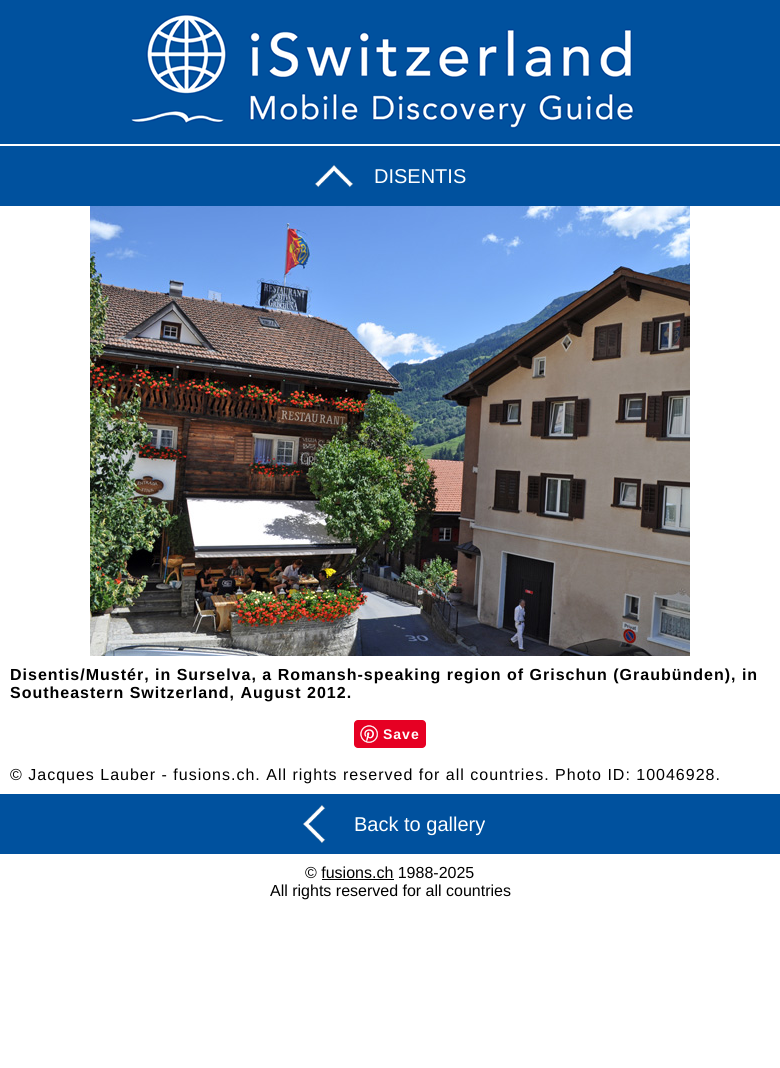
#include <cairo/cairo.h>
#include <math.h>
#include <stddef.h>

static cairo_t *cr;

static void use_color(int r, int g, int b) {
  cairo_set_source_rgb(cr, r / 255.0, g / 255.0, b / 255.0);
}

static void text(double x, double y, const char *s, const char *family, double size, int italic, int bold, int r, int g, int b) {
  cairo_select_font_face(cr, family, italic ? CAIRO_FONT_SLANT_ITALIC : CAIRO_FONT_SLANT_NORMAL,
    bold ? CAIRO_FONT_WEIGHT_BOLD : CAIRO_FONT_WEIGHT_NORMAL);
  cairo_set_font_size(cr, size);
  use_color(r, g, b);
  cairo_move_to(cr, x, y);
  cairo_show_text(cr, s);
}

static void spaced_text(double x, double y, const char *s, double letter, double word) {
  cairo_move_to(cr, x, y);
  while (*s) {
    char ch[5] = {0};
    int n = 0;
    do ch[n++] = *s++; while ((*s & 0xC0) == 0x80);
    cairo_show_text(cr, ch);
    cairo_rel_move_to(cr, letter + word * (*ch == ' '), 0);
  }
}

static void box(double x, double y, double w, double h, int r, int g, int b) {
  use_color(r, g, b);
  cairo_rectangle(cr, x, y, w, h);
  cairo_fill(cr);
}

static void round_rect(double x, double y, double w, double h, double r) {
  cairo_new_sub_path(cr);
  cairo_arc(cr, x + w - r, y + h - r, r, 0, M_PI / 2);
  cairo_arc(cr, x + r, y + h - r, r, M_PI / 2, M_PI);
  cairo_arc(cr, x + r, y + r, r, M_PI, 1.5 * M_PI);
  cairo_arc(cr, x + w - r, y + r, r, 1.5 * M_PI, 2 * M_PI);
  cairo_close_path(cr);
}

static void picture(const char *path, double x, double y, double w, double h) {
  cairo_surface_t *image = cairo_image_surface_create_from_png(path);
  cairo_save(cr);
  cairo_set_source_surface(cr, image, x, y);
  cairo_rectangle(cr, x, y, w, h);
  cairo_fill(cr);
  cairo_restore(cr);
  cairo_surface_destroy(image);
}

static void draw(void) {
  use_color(255, 255, 255);
  cairo_paint(cr);
  box(0, 0, 780, 144, 0, 81, 158);
  picture("img_01.png", 130, 14, 505, 115);
  box(0, 146, 780, 60, 0, 81, 158);
  picture("img_02.png", 315, 165, 39, 23);
  picture("img_03.png", 90, 206, 600, 450);
  use_color(230, 0, 35);
  round_rect(354, 720, 72, 28, 4);
  cairo_fill(cr);
  picture("img_04.png", 360, 725, 18, 18);
  box(0, 794, 780, 60, 0, 81, 158);
  picture("img_05.png", 303, 805, 23, 38);
  box(322, 879, 72, 1, 0, 0, 0);
  text(374, 183, "DISENTIS", "Liberation Sans", 20, 0, 0, 255, 255, 255);
  cairo_select_font_face(cr, "Liberation Sans", CAIRO_FONT_SLANT_NORMAL, CAIRO_FONT_WEIGHT_BOLD);
  cairo_set_font_size(cr, 16);
  use_color(0, 0, 0);
  spaced_text(10, 680, "Disentis/Mustér, in Surselva, a Romansh-speaking region of Grischun (Graubünden), in", 1, 0);
  spaced_text(10, 698, "Southeastern Switzerland, August 2012.", 1, 0);
  cairo_set_font_size(cr, 14);
  use_color(255, 255, 255);
  spaced_text(383, 739, "Save", 1, 0);
  cairo_select_font_face(cr, "Liberation Sans", CAIRO_FONT_SLANT_NORMAL, CAIRO_FONT_WEIGHT_NORMAL);
  cairo_set_font_size(cr, 16);
  use_color(0, 0, 0);
  spaced_text(10, 780, "© Jacques Lauber - fusions.ch. All rights reserved for all countries. Photo ID: 10046928.", 1, 0);
  text(354, 831, "Back to gallery", "Liberation Sans", 20, 0, 0, 255, 255, 255);
  text(305, 878, "© fusions.ch 1988-2025", "Liberation Sans", 16, 0, 0, 0, 0, 0);
  text(270, 896, "All rights reserved for all countries", "Liberation Sans", 16, 0, 0, 0, 0, 0);
}

int main(void) {
  cairo_surface_t *surface = cairo_image_surface_create(CAIRO_FORMAT_RGB24, 780, 1068);
  cr = cairo_create(surface);
  cairo_font_options_t *options = cairo_font_options_create();
  cairo_font_options_set_hint_metrics(options, CAIRO_HINT_METRICS_OFF);
  cairo_font_options_set_hint_style(options, CAIRO_HINT_STYLE_NONE);
  cairo_set_font_options(cr, options);
  cairo_set_miter_limit(cr, 4);
  draw();
  cairo_surface_write_to_png(surface, "out.png");
  cairo_font_options_destroy(options);
  cairo_destroy(cr);
  cairo_surface_destroy(surface);
  return 0;
}
